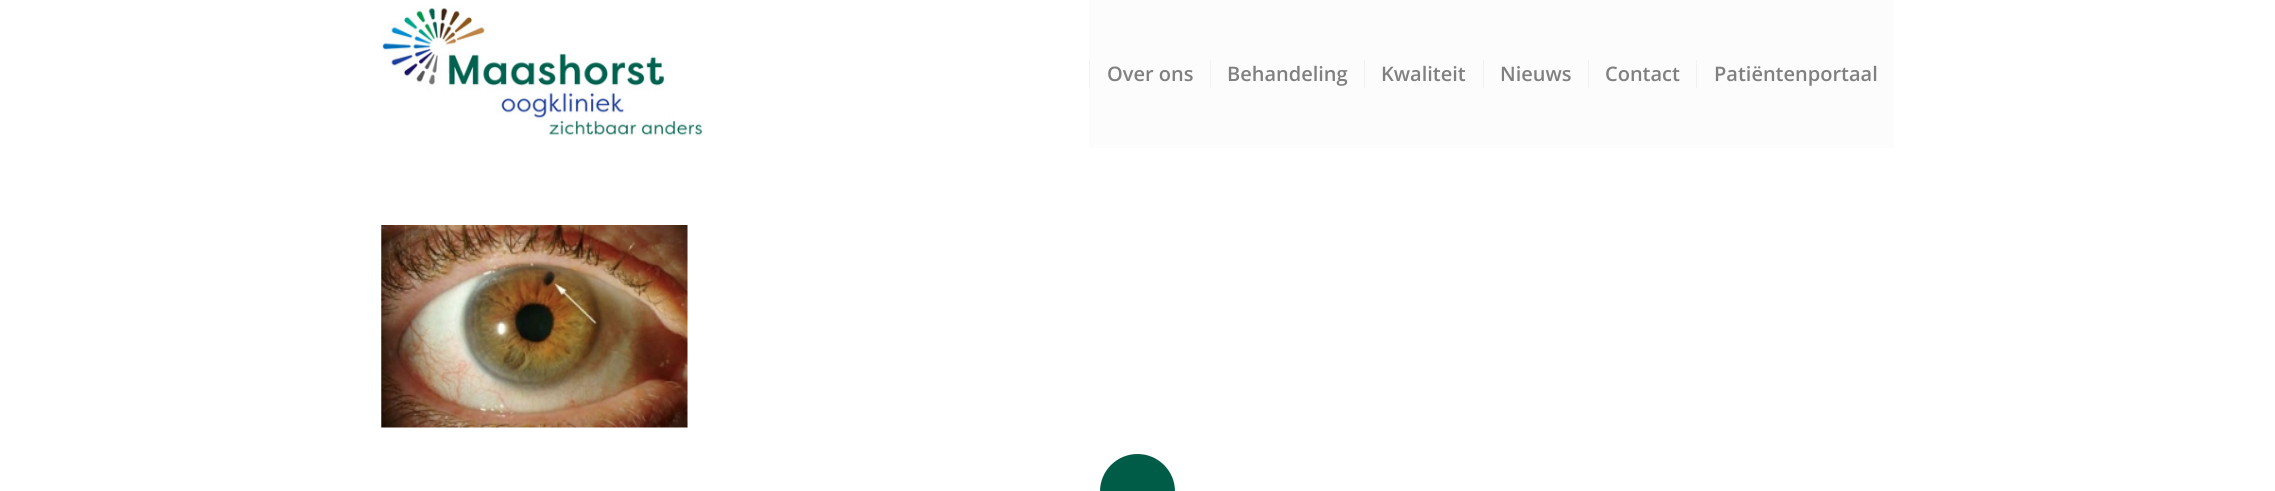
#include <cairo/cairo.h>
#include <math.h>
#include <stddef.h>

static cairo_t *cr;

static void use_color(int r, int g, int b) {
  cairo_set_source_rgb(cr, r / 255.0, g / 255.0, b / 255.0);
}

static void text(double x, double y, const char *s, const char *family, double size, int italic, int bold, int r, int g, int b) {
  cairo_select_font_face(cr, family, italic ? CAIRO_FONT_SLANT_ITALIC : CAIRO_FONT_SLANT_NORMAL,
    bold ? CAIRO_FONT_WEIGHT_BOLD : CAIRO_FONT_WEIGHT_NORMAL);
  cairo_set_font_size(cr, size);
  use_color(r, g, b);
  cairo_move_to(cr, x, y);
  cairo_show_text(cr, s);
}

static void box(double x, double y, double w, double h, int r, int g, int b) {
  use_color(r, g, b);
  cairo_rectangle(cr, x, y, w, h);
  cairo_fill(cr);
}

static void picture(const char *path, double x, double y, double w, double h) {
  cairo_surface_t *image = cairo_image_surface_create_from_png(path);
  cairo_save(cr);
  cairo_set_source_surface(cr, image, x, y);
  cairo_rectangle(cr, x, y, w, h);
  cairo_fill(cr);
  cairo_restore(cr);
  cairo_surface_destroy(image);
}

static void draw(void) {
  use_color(255, 255, 255);
  cairo_paint(cr);
  picture("img_01.png", 381, 7, 322, 129);
  box(1089, 0, 805, 148, 252, 252, 252);
  box(1089, 60, 1, 28, 242, 242, 242);
  box(1210, 60, 1, 28, 242, 242, 242);
  box(1364, 60, 1, 28, 242, 242, 242);
  box(1483, 60, 1, 28, 242, 242, 242);
  box(1588, 60, 1, 28, 242, 242, 242);
  box(1696, 60, 1, 28, 242, 242, 242);
  picture("img_02.png", 381, 225, 307, 203);
  use_color(0, 92, 71);
  cairo_arc(cr, 1137.5, 491.5, 37.5, 0, 2 * M_PI);
  cairo_fill(cr);
  text(1107, 81, "Over ons", "Open Sans SemiBold", 20, 0, 0, 128, 128, 128);
  text(1227, 81, "Behandeling", "Open Sans SemiBold", 20, 0, 0, 128, 128, 128);
  text(1381, 81, "Kwaliteit", "Open Sans SemiBold", 20, 0, 0, 128, 128, 128);
  text(1500, 81, "Nieuws", "Open Sans SemiBold", 20, 0, 0, 128, 128, 128);
  text(1605, 81, "Contact", "Open Sans SemiBold", 20, 0, 0, 128, 128, 128);
  text(1714, 81, "Patiëntenportaal", "Open Sans SemiBold", 20, 0, 0, 128, 128, 128);
}

int main(void) {
  cairo_surface_t *surface = cairo_image_surface_create(CAIRO_FORMAT_RGB24, 2275, 491);
  cr = cairo_create(surface);
  cairo_font_options_t *options = cairo_font_options_create();
  cairo_font_options_set_hint_metrics(options, CAIRO_HINT_METRICS_OFF);
  cairo_font_options_set_hint_style(options, CAIRO_HINT_STYLE_NONE);
  cairo_set_font_options(cr, options);
  cairo_set_miter_limit(cr, 4);
  draw();
  cairo_surface_write_to_png(surface, "out.png");
  cairo_font_options_destroy(options);
  cairo_destroy(cr);
  cairo_surface_destroy(surface);
  return 0;
}
